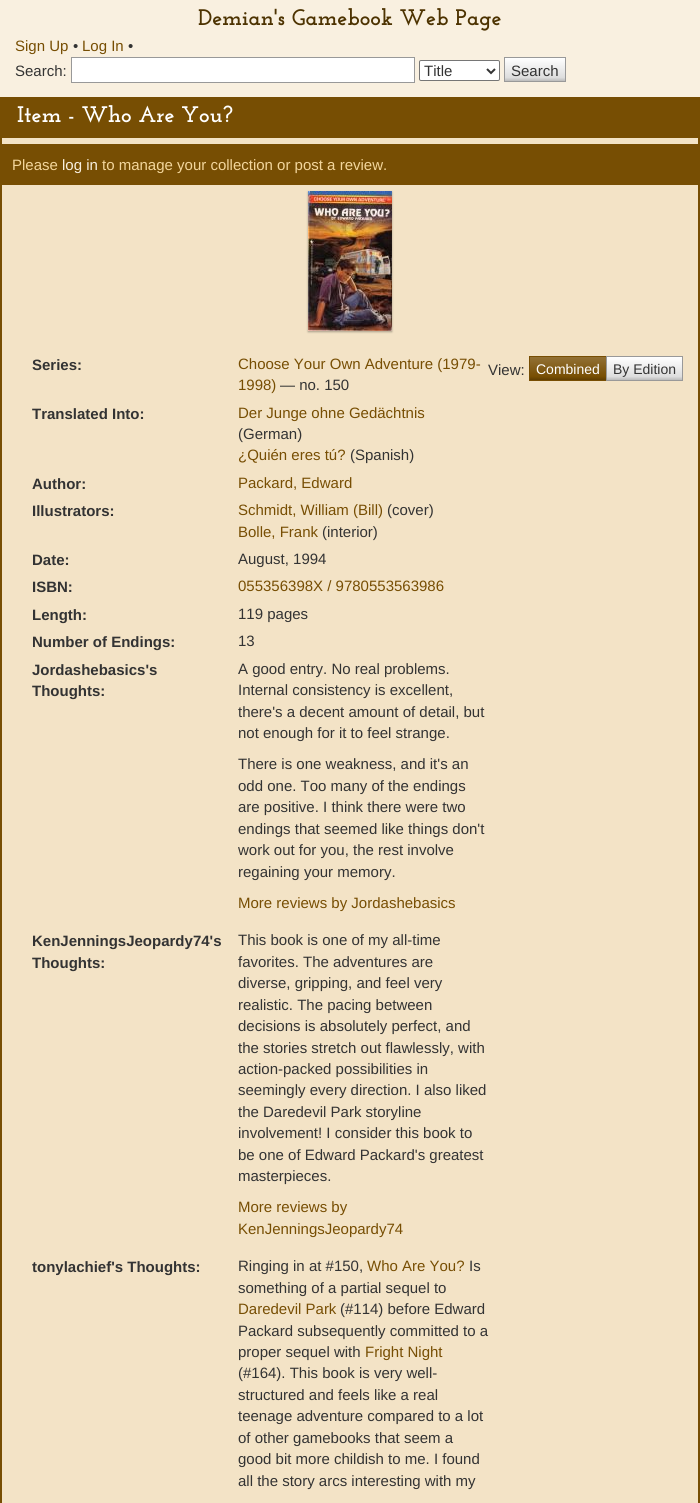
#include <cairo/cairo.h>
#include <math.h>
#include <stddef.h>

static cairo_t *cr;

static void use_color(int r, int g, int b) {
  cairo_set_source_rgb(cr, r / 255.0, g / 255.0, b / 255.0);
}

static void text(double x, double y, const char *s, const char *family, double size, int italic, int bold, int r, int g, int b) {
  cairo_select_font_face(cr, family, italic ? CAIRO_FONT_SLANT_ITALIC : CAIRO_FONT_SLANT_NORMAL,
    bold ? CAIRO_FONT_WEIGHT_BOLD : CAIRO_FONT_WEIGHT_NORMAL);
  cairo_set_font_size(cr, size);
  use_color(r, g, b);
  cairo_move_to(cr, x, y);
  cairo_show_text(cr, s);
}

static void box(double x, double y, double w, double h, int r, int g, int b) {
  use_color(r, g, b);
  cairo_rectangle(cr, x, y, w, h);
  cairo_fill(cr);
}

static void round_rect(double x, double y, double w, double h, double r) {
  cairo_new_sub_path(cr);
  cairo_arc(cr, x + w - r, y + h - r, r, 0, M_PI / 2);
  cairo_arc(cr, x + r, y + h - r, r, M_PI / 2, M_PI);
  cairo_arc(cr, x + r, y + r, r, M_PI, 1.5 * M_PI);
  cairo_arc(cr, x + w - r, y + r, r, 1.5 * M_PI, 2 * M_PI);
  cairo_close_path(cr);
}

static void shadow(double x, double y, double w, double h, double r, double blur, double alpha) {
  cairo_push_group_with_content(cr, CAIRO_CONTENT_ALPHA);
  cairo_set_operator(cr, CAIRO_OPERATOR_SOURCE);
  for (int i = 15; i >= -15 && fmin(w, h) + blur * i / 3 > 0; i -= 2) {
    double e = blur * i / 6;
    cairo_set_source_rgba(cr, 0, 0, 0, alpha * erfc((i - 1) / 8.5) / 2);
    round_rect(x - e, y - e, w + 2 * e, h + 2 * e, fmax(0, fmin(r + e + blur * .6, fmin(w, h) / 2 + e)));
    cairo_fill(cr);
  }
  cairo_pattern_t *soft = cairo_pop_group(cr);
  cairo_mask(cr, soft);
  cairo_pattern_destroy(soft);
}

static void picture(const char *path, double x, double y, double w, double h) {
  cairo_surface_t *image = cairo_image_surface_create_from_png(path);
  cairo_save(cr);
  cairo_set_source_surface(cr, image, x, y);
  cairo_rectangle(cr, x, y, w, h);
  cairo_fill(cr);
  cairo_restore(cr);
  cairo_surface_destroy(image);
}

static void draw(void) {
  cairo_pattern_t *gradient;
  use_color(249, 240, 224);
  cairo_paint(cr);
  use_color(255, 255, 255);
  cairo_rectangle(cr, 71.5, 57.5, 343, 25);
  cairo_fill_preserve(cr);
  use_color(153, 153, 153);
  cairo_set_line_width(cr, 1);
  cairo_stroke(cr);
  use_color(255, 255, 255);
  round_rect(419.5, 60.5, 80, 20, 1.5);
  cairo_fill_preserve(cr);
  use_color(118, 118, 118);
  cairo_stroke(cr);
  cairo_new_path(cr);
  cairo_move_to(cr, 487, 69);
  cairo_line_to(cr, 491, 73);
  cairo_line_to(cr, 495, 69);
  use_color(51, 51, 51);
  cairo_set_line_width(cr, 2);
  cairo_stroke(cr);
  gradient = cairo_pattern_create_linear(535, 58, 535, 81);
  cairo_pattern_add_color_stop_rgba(gradient, 0, 1, 1, 1, 1);
  cairo_pattern_add_color_stop_rgba(gradient, 0.85, 0.867, 0.867, 0.867, 1);
  cairo_pattern_add_color_stop_rgba(gradient, 1, 0.733, 0.733, 0.733, 1);
  cairo_set_source(cr, gradient);
  cairo_pattern_destroy(gradient);
  cairo_rectangle(cr, 505, 58, 60, 23);
  cairo_fill(cr);
  cairo_rectangle(cr, 504.5, 57.5, 61, 24);
  use_color(153, 153, 153);
  cairo_set_line_width(cr, 1);
  cairo_stroke(cr);
  box(2, 138, 696, 1365, 243, 227, 198);
  box(0, 97, 700, 41, 119, 78, 3);
  box(698, 138, 2, 1365, 119, 78, 3);
  box(0, 138, 2, 1365, 119, 78, 3);
  box(2, 144, 696, 41, 119, 78, 3);
  use_color(0, 0, 0);
  shadow(308, 192, 84, 140, 0, 1, 0.3);
  picture("img_01.png", 308, 191, 84, 140);
  gradient = cairo_pattern_create_linear(568, 357, 568, 380);
  cairo_pattern_add_color_stop_rgba(gradient, 0, 0.573, 0.443, 0.208, 1);
  cairo_pattern_add_color_stop_rgba(gradient, 0.85, 0.467, 0.306, 0.012, 1);
  cairo_pattern_add_color_stop_rgba(gradient, 1, 0.373, 0.243, 0.008, 1);
  cairo_set_source(cr, gradient);
  cairo_pattern_destroy(gradient);
  cairo_rectangle(cr, 530, 357, 76, 23);
  cairo_fill(cr);
  cairo_rectangle(cr, 529.5, 356.5, 77, 24);
  use_color(119, 78, 3);
  cairo_stroke(cr);
  gradient = cairo_pattern_create_linear(645, 357, 645, 380);
  cairo_pattern_add_color_stop_rgba(gradient, 0, 1, 1, 1, 1);
  cairo_pattern_add_color_stop_rgba(gradient, 0.85, 0.867, 0.867, 0.867, 1);
  cairo_pattern_add_color_stop_rgba(gradient, 1, 0.733, 0.733, 0.733, 1);
  cairo_set_source(cr, gradient);
  cairo_pattern_destroy(gradient);
  cairo_rectangle(cr, 607, 357, 75, 23);
  cairo_fill(cr);
  cairo_rectangle(cr, 606.5, 356.5, 76, 24);
  use_color(153, 153, 153);
  cairo_stroke(cr);
  text(198, 25, "Demian's Gamebook Web Page", "Josefin Slab", 22.5, 0, 1, 77, 51, 1);
  text(15, 51, "Sign Up", "Liberation Sans", 15, 0, 0, 119, 78, 3);
  text(73, 51, "•", "Liberation Sans", 15, 0, 0, 51, 51, 51);
  text(82, 51, "Log In", "Liberation Sans", 15, 0, 0, 119, 78, 3);
  text(128, 51, "•", "Liberation Sans", 15, 0, 0, 51, 51, 51);
  text(15, 76, "Search:", "Liberation Sans", 15, 0, 0, 51, 51, 51);
  text(424, 76, "Title", "Liberation Sans", 15, 0, 0, 51, 51, 51);
  text(511, 76, "Search", "Liberation Sans", 15, 0, 0, 51, 51, 51);
  text(17, 122, "Item - Who Are You?", "Josefin Slab", 22.5, 0, 1, 255, 255, 255);
  text(12, 170, "Please", "Liberation Sans", 15, 0, 0, 243, 214, 156);
  text(62, 170, "log in", "Liberation Sans", 15, 0, 0, 249, 240, 224);
  text(102, 170, "to manage your collection or post a review.", "Liberation Sans", 15, 0, 0, 243, 214, 156);
  text(32, 370, "Series:", "Liberation Sans", 15, 0, 1, 51, 51, 51);
  text(238, 369, "Choose Your Own Adventure (1979-", "Liberation Sans", 15, 0, 0, 119, 78, 3);
  text(238, 390, "1998)", "Liberation Sans", 15, 0, 0, 119, 78, 3);
  text(280, 390, "— no. 150", "Liberation Sans", 15, 0, 0, 51, 51, 51);
  text(32, 419, "Translated Into:", "Liberation Sans", 15, 0, 1, 51, 51, 51);
  text(238, 418, "Der Junge ohne Gedächtnis", "Liberation Sans", 15, 0, 0, 119, 78, 3);
  text(238, 439, "(German)", "Liberation Sans", 15, 0, 0, 51, 51, 51);
  text(238, 460, "¿Quién eres tú?", "Liberation Sans", 15, 0, 0, 119, 78, 3);
  text(350, 460, "(Spanish)", "Liberation Sans", 15, 0, 0, 51, 51, 51);
  text(32, 489, "Author:", "Liberation Sans", 15, 0, 1, 51, 51, 51);
  text(238, 488, "Packard, Edward", "Liberation Sans", 15, 0, 0, 119, 78, 3);
  text(32, 516, "Illustrators:", "Liberation Sans", 15, 0, 1, 51, 51, 51);
  text(238, 515, "Schmidt, William (Bill)", "Liberation Sans", 15, 0, 0, 119, 78, 3);
  text(387, 515, "(cover)", "Liberation Sans", 15, 0, 0, 51, 51, 51);
  text(238, 537, "Bolle, Frank", "Liberation Sans", 15, 0, 0, 119, 78, 3);
  text(322, 537, "(interior)", "Liberation Sans", 15, 0, 0, 51, 51, 51);
  text(32, 565, "Date:", "Liberation Sans", 15, 0, 1, 51, 51, 51);
  text(238, 564, "August, 1994", "Liberation Sans", 15, 0, 0, 51, 51, 51);
  text(32, 592, "ISBN:", "Liberation Sans", 15, 0, 1, 51, 51, 51);
  text(238, 591, "055356398X / 9780553563986", "Liberation Sans", 15, 0, 0, 119, 78, 3);
  text(32, 620, "Length:", "Liberation Sans", 15, 0, 1, 51, 51, 51);
  text(238, 619, "119 pages", "Liberation Sans", 15, 0, 0, 51, 51, 51);
  text(32, 647, "Number of Endings:", "Liberation Sans", 15, 0, 1, 51, 51, 51);
  text(238, 646, "13", "Liberation Sans", 15, 0, 0, 51, 51, 51);
  text(32, 675, "Jordashebasics's", "Liberation Sans", 15, 0, 1, 51, 51, 51);
  text(32, 696, "Thoughts:", "Liberation Sans", 15, 0, 1, 51, 51, 51);
  text(238, 674, "A good entry. No real problems.", "Liberation Sans", 15, 0, 0, 51, 51, 51);
  text(238, 695, "Internal consistency is excellent,", "Liberation Sans", 15, 0, 0, 51, 51, 51);
  text(238, 717, "there's a decent amount of detail, but", "Liberation Sans", 15, 0, 0, 51, 51, 51);
  text(238, 738, "not enough for it to feel strange.", "Liberation Sans", 15, 0, 0, 51, 51, 51);
  text(238, 769, "There is one weakness, and it's an", "Liberation Sans", 15, 0, 0, 51, 51, 51);
  text(238, 791, "odd one. Too many of the endings", "Liberation Sans", 15, 0, 0, 51, 51, 51);
  text(238, 812, "are positive. I think there were two", "Liberation Sans", 15, 0, 0, 51, 51, 51);
  text(238, 834, "endings that seemed like things don't", "Liberation Sans", 15, 0, 0, 51, 51, 51);
  text(238, 855, "work out for you, the rest involve", "Liberation Sans", 15, 0, 0, 51, 51, 51);
  text(238, 877, "regaining your memory.", "Liberation Sans", 15, 0, 0, 51, 51, 51);
  text(238, 908, "More reviews by Jordashebasics", "Liberation Sans", 15, 0, 0, 119, 78, 3);
  text(32, 946, "KenJenningsJeopardy74's", "Liberation Sans", 15, 0, 1, 51, 51, 51);
  text(32, 968, "Thoughts:", "Liberation Sans", 15, 0, 1, 51, 51, 51);
  text(238, 945, "This book is one of my all-time", "Liberation Sans", 15, 0, 0, 51, 51, 51);
  text(238, 967, "favorites. The adventures are", "Liberation Sans", 15, 0, 0, 51, 51, 51);
  text(238, 988, "diverse, gripping, and feel very", "Liberation Sans", 15, 0, 0, 51, 51, 51);
  text(238, 1010, "realistic. The pacing between", "Liberation Sans", 15, 0, 0, 51, 51, 51);
  text(238, 1031, "decisions is absolutely perfect, and", "Liberation Sans", 15, 0, 0, 51, 51, 51);
  text(238, 1053, "the stories stretch out flawlessly, with", "Liberation Sans", 15, 0, 0, 51, 51, 51);
  text(238, 1074, "action-packed possibilities in", "Liberation Sans", 15, 0, 0, 51, 51, 51);
  text(238, 1095, "seemingly every direction. I also liked", "Liberation Sans", 15, 0, 0, 51, 51, 51);
  text(238, 1117, "the Daredevil Park storyline", "Liberation Sans", 15, 0, 0, 51, 51, 51);
  text(238, 1138, "involvement! I consider this book to", "Liberation Sans", 15, 0, 0, 51, 51, 51);
  text(238, 1160, "be one of Edward Packard's greatest", "Liberation Sans", 15, 0, 0, 51, 51, 51);
  text(238, 1181, "masterpieces.", "Liberation Sans", 15, 0, 0, 51, 51, 51);
  text(238, 1212, "More reviews by", "Liberation Sans", 15, 0, 0, 119, 78, 3);
  text(238, 1234, "KenJenningsJeopardy74", "Liberation Sans", 15, 0, 0, 119, 78, 3);
  text(32, 1272, "tonylachief's Thoughts:", "Liberation Sans", 15, 0, 1, 51, 51, 51);
  text(238, 1271, "Ringing in at #150,", "Liberation Sans", 15, 0, 0, 51, 51, 51);
  text(367, 1271, "Who Are You?", "Liberation Sans", 15, 0, 0, 119, 78, 3);
  text(469, 1271, "Is", "Liberation Sans", 15, 0, 0, 51, 51, 51);
  text(238, 1293, "something of a partial sequel to", "Liberation Sans", 15, 0, 0, 51, 51, 51);
  text(238, 1314, "Daredevil Park", "Liberation Sans", 15, 0, 0, 119, 78, 3);
  text(340, 1314, "(#114) before Edward", "Liberation Sans", 15, 0, 0, 51, 51, 51);
  text(238, 1336, "Packard subsequently committed to a", "Liberation Sans", 15, 0, 0, 51, 51, 51);
  text(238, 1357, "proper sequel with", "Liberation Sans", 15, 0, 0, 51, 51, 51);
  text(365, 1357, "Fright Night", "Liberation Sans", 15, 0, 0, 119, 78, 3);
  text(238, 1378, "(#164). This book is very well-", "Liberation Sans", 15, 0, 0, 51, 51, 51);
  text(238, 1400, "structured and feels like a real", "Liberation Sans", 15, 0, 0, 51, 51, 51);
  text(238, 1421, "teenage adventure compared to a lot", "Liberation Sans", 15, 0, 0, 51, 51, 51);
  text(238, 1443, "of other gamebooks that seem a", "Liberation Sans", 15, 0, 0, 51, 51, 51);
  text(238, 1464, "good bit more childish to me. I found", "Liberation Sans", 15, 0, 0, 51, 51, 51);
  text(238, 1486, "all the story arcs interesting with my", "Liberation Sans", 15, 0, 0, 51, 51, 51);
  text(488, 375, "View:", "Liberation Sans", 15, 0, 0, 51, 51, 51);
  text(536, 374, "Combined", "Liberation Sans", 14, 0, 0, 255, 255, 255);
  text(613, 374, "By Edition", "Liberation Sans", 14, 0, 0, 51, 51, 51);
}

int main(void) {
  cairo_surface_t *surface = cairo_image_surface_create(CAIRO_FORMAT_RGB24, 700, 1503);
  cr = cairo_create(surface);
  cairo_font_options_t *options = cairo_font_options_create();
  cairo_font_options_set_hint_metrics(options, CAIRO_HINT_METRICS_OFF);
  cairo_font_options_set_hint_style(options, CAIRO_HINT_STYLE_NONE);
  cairo_set_font_options(cr, options);
  cairo_set_miter_limit(cr, 4);
  draw();
  cairo_surface_write_to_png(surface, "out.png");
  cairo_font_options_destroy(options);
  cairo_destroy(cr);
  cairo_surface_destroy(surface);
  return 0;
}
